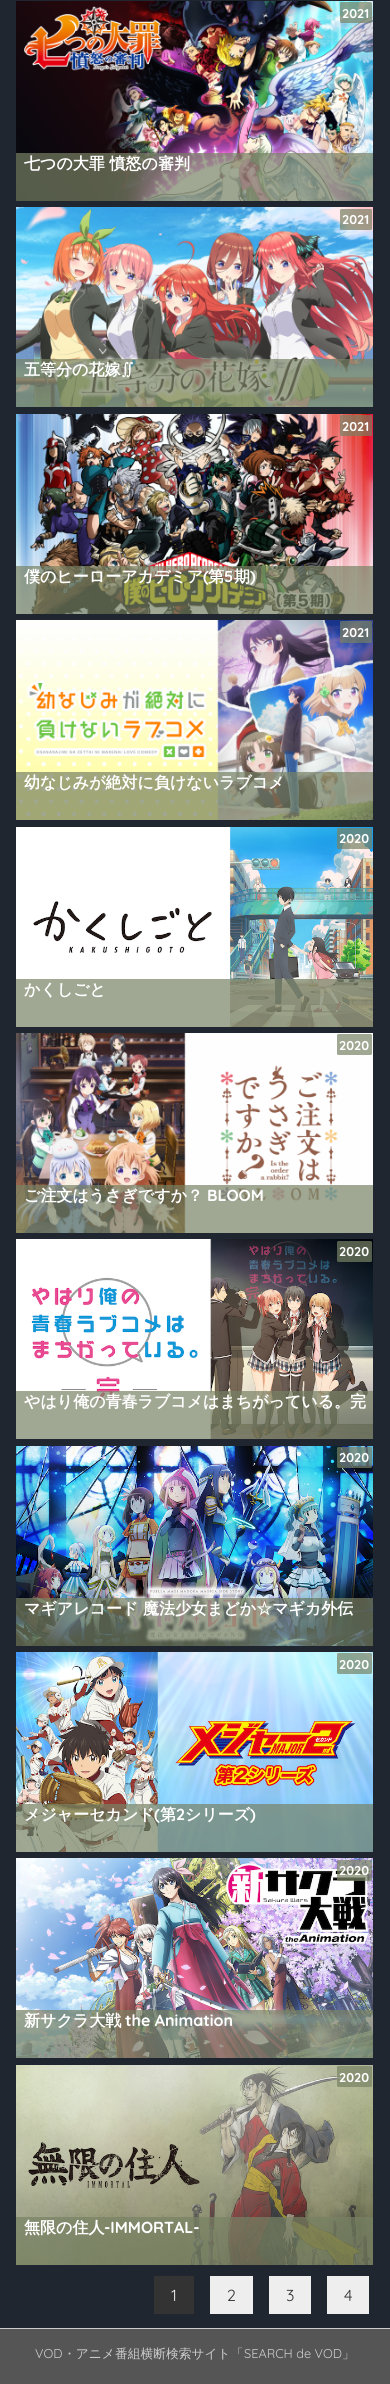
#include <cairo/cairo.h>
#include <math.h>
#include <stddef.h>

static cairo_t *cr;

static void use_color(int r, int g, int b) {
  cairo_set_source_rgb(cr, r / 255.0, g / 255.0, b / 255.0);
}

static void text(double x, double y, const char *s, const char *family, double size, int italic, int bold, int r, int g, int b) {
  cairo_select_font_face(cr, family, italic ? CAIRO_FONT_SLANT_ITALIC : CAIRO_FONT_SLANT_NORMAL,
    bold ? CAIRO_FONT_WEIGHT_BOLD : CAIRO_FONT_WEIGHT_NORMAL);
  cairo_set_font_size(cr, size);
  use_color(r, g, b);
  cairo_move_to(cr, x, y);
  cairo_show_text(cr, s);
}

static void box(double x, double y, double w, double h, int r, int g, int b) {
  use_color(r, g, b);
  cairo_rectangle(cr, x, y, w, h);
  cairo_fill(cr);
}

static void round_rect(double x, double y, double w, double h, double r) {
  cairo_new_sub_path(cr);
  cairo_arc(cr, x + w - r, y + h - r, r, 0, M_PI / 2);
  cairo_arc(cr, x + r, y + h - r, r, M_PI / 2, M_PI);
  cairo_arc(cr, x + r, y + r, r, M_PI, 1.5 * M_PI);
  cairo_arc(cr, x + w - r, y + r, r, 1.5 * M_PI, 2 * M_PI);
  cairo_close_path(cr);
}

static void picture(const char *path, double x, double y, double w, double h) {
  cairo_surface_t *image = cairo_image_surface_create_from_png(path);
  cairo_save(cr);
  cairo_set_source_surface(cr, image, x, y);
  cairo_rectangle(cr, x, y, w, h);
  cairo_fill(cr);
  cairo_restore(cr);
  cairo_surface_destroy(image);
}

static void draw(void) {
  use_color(31, 38, 47);
  cairo_paint(cr);
  picture("img_01.png", 16, 1, 357, 200);
  cairo_set_source_rgba(cr, 0.471, 0.51, 0.392, 0.7);
  round_rect(340, 2, 32, 21, 1.5);
  cairo_fill(cr);
  cairo_rectangle(cr, 16, 153, 357, 48);
  cairo_fill(cr);
  picture("img_02.png", 16, 207, 357, 200);
  round_rect(340, 209, 32, 21, 1.5);
  cairo_fill(cr);
  cairo_rectangle(cr, 16, 359, 357, 48);
  cairo_fill(cr);
  picture("img_03.png", 16, 414, 357, 200);
  round_rect(340, 415, 32, 21, 1.5);
  cairo_fill(cr);
  cairo_rectangle(cr, 16, 566, 357, 48);
  cairo_fill(cr);
  picture("img_04.png", 16, 620, 357, 200);
  round_rect(340, 621, 32, 22, 1.5);
  cairo_fill(cr);
  cairo_rectangle(cr, 16, 772, 357, 48);
  cairo_fill(cr);
  picture("img_05.png", 16, 827, 357, 200);
  cairo_new_path(cr);
  cairo_move_to(cr, 339, 828);
  cairo_line_to(cr, 370, 828);
  cairo_curve_to(cr, 371, 828, 372, 828.5, 372, 829);
  cairo_line_to(cr, 372, 848);
  cairo_curve_to(cr, 372, 848.5, 371, 849, 370, 849);
  cairo_line_to(cr, 339, 849);
  cairo_curve_to(cr, 338, 849, 337, 848.5, 337, 848);
  cairo_line_to(cr, 337, 829);
  cairo_curve_to(cr, 337, 828.5, 338, 828, 339, 828);
  cairo_close_path(cr);
  cairo_fill(cr);
  cairo_rectangle(cr, 16, 979, 357, 48);
  cairo_fill(cr);
  picture("img_06.png", 16, 1033, 357, 200);
  use_color(160, 167, 146);
  cairo_new_path(cr);
  cairo_move_to(cr, 339, 1034);
  cairo_line_to(cr, 370, 1034);
  cairo_curve_to(cr, 371, 1034, 372, 1034.5, 372, 1035);
  cairo_line_to(cr, 372, 1054);
  cairo_curve_to(cr, 372, 1054.5, 371, 1055, 370, 1055);
  cairo_line_to(cr, 339, 1055);
  cairo_curve_to(cr, 338, 1055, 337, 1054.5, 337, 1054);
  cairo_line_to(cr, 337, 1035);
  cairo_curve_to(cr, 337, 1034.5, 338, 1034, 339, 1034);
  cairo_close_path(cr);
  cairo_fill(cr);
  cairo_set_source_rgba(cr, 0.471, 0.51, 0.392, 0.7);
  cairo_rectangle(cr, 16, 1185, 357, 48);
  cairo_fill(cr);
  picture("img_07.png", 16, 1239, 357, 200);
  cairo_new_path(cr);
  cairo_move_to(cr, 339, 1241);
  cairo_line_to(cr, 370, 1241);
  cairo_curve_to(cr, 371, 1241, 372, 1241.5, 372, 1242);
  cairo_line_to(cr, 372, 1261);
  cairo_curve_to(cr, 372, 1261.5, 371, 1262, 370, 1262);
  cairo_line_to(cr, 339, 1262);
  cairo_curve_to(cr, 338, 1262, 337, 1261.5, 337, 1261);
  cairo_line_to(cr, 337, 1242);
  cairo_curve_to(cr, 337, 1241.5, 338, 1241, 339, 1241);
  cairo_close_path(cr);
  cairo_fill(cr);
  cairo_rectangle(cr, 16, 1391, 357, 48);
  cairo_fill(cr);
  picture("img_08.png", 16, 1446, 357, 200);
  cairo_new_path(cr);
  cairo_move_to(cr, 339, 1447);
  cairo_line_to(cr, 370, 1447);
  cairo_curve_to(cr, 371, 1447, 372, 1447.5, 372, 1448);
  cairo_line_to(cr, 372, 1467);
  cairo_curve_to(cr, 372, 1467.5, 371, 1468, 370, 1468);
  cairo_line_to(cr, 339, 1468);
  cairo_curve_to(cr, 338, 1468, 337, 1467.5, 337, 1467);
  cairo_line_to(cr, 337, 1448);
  cairo_curve_to(cr, 337, 1447.5, 338, 1447, 339, 1447);
  cairo_close_path(cr);
  cairo_fill(cr);
  cairo_rectangle(cr, 16, 1598, 357, 48);
  cairo_fill(cr);
  picture("img_09.png", 16, 1652, 357, 200);
  cairo_new_path(cr);
  cairo_move_to(cr, 339, 1653);
  cairo_line_to(cr, 370, 1653);
  cairo_curve_to(cr, 371, 1653, 372, 1653.5, 372, 1654);
  cairo_line_to(cr, 372, 1673);
  cairo_curve_to(cr, 372, 1673.5, 371, 1674, 370, 1674);
  cairo_line_to(cr, 339, 1674);
  cairo_curve_to(cr, 338, 1674, 337, 1673.5, 337, 1673);
  cairo_line_to(cr, 337, 1654);
  cairo_curve_to(cr, 337, 1653.5, 338, 1653, 339, 1653);
  cairo_close_path(cr);
  cairo_fill(cr);
  cairo_rectangle(cr, 16, 1804, 357, 48);
  cairo_fill(cr);
  picture("img_10.png", 16, 1858, 357, 200);
  cairo_new_path(cr);
  cairo_move_to(cr, 339, 1860);
  cairo_line_to(cr, 370, 1860);
  cairo_curve_to(cr, 371, 1860, 372, 1860.5, 372, 1861);
  cairo_line_to(cr, 372, 1880);
  cairo_curve_to(cr, 372, 1880.5, 371, 1881, 370, 1881);
  cairo_line_to(cr, 339, 1881);
  cairo_curve_to(cr, 338, 1881, 337, 1880.5, 337, 1880);
  cairo_line_to(cr, 337, 1861);
  cairo_curve_to(cr, 337, 1860.5, 338, 1860, 339, 1860);
  cairo_close_path(cr);
  cairo_fill(cr);
  cairo_rectangle(cr, 16, 2010, 357, 48);
  cairo_fill(cr);
  picture("img_11.png", 16, 2065, 357, 200);
  cairo_new_path(cr);
  cairo_move_to(cr, 339, 2066);
  cairo_line_to(cr, 370, 2066);
  cairo_curve_to(cr, 371, 2066, 372, 2066.5, 372, 2067);
  cairo_line_to(cr, 372, 2086);
  cairo_curve_to(cr, 372, 2086.5, 371, 2087, 370, 2087);
  cairo_line_to(cr, 339, 2087);
  cairo_curve_to(cr, 338, 2087, 337, 2086.5, 337, 2086);
  cairo_line_to(cr, 337, 2067);
  cairo_curve_to(cr, 337, 2066.5, 338, 2066, 339, 2066);
  cairo_close_path(cr);
  cairo_fill(cr);
  cairo_rectangle(cr, 16, 2217, 357, 48);
  cairo_fill(cr);
  box(154, 2276, 40, 38, 51, 51, 51);
  box(210, 2276, 43, 38, 238, 238, 238);
  box(269, 2276, 42, 38, 238, 238, 238);
  box(327, 2276, 42, 38, 238, 238, 238);
  box(0, 2329, 390, 55, 85, 85, 85);
  box(0, 2328, 390, 1, 204, 204, 204);
  text(342, 18, "2021", "Quicksand", 12.75, 0, 1, 255, 255, 255);
  text(24, 169, "七つの大罪 憤怒の審判", "WenQuanYi Zen Hei", 16, 0, 1, 255, 255, 255);
  text(342, 224, "2021", "Quicksand", 12.75, 0, 1, 255, 255, 255);
  text(24, 375, "五等分の花嫁∬", "WenQuanYi Zen Hei", 16, 0, 1, 255, 255, 255);
  text(342, 431, "2021", "Quicksand", 12.75, 0, 1, 255, 255, 255);
  text(24, 582, "僕のヒーローアカデミア", "WenQuanYi Zen Hei", 16, 0, 1, 255, 255, 255);
  text(203, 582, "(", "Quicksand", 16, 0, 1, 255, 255, 255);
  text(208, 582, "第", "WenQuanYi Zen Hei", 16, 0, 1, 255, 255, 255);
  text(224, 582, "5", "Quicksand", 16, 0, 1, 255, 255, 255);
  text(234, 582, "期", "WenQuanYi Zen Hei", 16, 0, 1, 255, 255, 255);
  text(250, 582, ")", "Quicksand", 16, 0, 1, 255, 255, 255);
  text(342, 637, "2021", "Quicksand", 12.75, 0, 1, 255, 255, 255);
  text(24, 788, "幼なじみが絶対に負けないラブコメ", "WenQuanYi Zen Hei", 16, 0, 1, 255, 255, 255);
  text(339, 843, "2020", "Quicksand", 12.75, 0, 1, 255, 255, 255);
  text(24, 995, "かくしごと", "WenQuanYi Zen Hei", 16, 0, 1, 255, 255, 255);
  text(339, 1050, "2020", "Quicksand", 12.75, 0, 1, 255, 255, 255);
  text(24, 1201, "ご注文はうさぎですか？", "WenQuanYi Zen Hei", 16, 0, 1, 255, 255, 255);
  text(207, 1201, "BLOOM", "Quicksand", 16, 0, 1, 255, 255, 255);
  text(339, 1256, "2020", "Quicksand", 12.75, 0, 1, 255, 255, 255);
  text(24, 1407, "やはり俺の青春ラブコメはまちがっている。完", "WenQuanYi Zen Hei", 16, 0, 1, 255, 255, 255);
  text(339, 1462, "2020", "Quicksand", 12.75, 0, 1, 255, 255, 255);
  text(24, 1614, "マギアレコード 魔法少女まどか☆マギカ外伝", "WenQuanYi Zen Hei", 16, 0, 1, 255, 255, 255);
  text(339, 1669, "2020", "Quicksand", 12.75, 0, 1, 255, 255, 255);
  text(24, 1820, "メジャーセカンド", "WenQuanYi Zen Hei", 16, 0, 1, 255, 255, 255);
  text(154, 1820, "(", "Quicksand", 16, 0, 1, 255, 255, 255);
  text(160, 1820, "第", "WenQuanYi Zen Hei", 16, 0, 1, 255, 255, 255);
  text(176, 1820, "2", "Quicksand", 16, 0, 1, 255, 255, 255);
  text(185, 1820, "シリーズ", "WenQuanYi Zen Hei", 16, 0, 1, 255, 255, 255);
  text(250, 1820, ")", "Quicksand", 16, 0, 1, 255, 255, 255);
  text(339, 1875, "2020", "Quicksand", 12.75, 0, 1, 255, 255, 255);
  text(24, 2026, "新サクラ大戦", "WenQuanYi Zen Hei", 16, 0, 1, 255, 255, 255);
  text(125, 2026, "the Animation", "Quicksand", 16, 0, 1, 255, 255, 255);
  text(339, 2082, "2020", "Quicksand", 12.75, 0, 1, 255, 255, 255);
  text(24, 2233, "無限の住人", "WenQuanYi Zen Hei", 16, 0, 1, 255, 255, 255);
  text(104, 2233, "-IMMORTAL-", "Quicksand", 16, 0, 1, 255, 255, 255);
  text(171, 2301, "1", "Quicksand", 16, 0, 0, 238, 238, 238);
  text(227, 2301, "2", "Quicksand", 16, 0, 0, 51, 51, 51);
  text(286, 2301, "3", "Quicksand", 16, 0, 0, 51, 51, 51);
  text(344, 2301, "4", "Quicksand", 16, 0, 0, 51, 51, 51);
  text(35, 2358, "VOD", "Quicksand", 12.75, 0, 0, 204, 204, 204);
  text(63, 2358, "・アニメ番組横断検索サイト「", "WenQuanYi Zen Hei Medium", 12.75, 0, 0, 204, 204, 204);
  text(244, 2358, "SEARCH de VOD", "Quicksand", 12.75, 0, 0, 204, 204, 204);
  text(342, 2358, "」", "WenQuanYi Zen Hei Medium", 12.75, 0, 0, 204, 204, 204);
}

int main(void) {
  cairo_surface_t *surface = cairo_image_surface_create(CAIRO_FORMAT_RGB24, 390, 2384);
  cr = cairo_create(surface);
  cairo_font_options_t *options = cairo_font_options_create();
  cairo_font_options_set_hint_metrics(options, CAIRO_HINT_METRICS_OFF);
  cairo_font_options_set_hint_style(options, CAIRO_HINT_STYLE_NONE);
  cairo_set_font_options(cr, options);
  cairo_set_miter_limit(cr, 4);
  draw();
  cairo_surface_write_to_png(surface, "out.png");
  cairo_font_options_destroy(options);
  cairo_destroy(cr);
  cairo_surface_destroy(surface);
  return 0;
}
